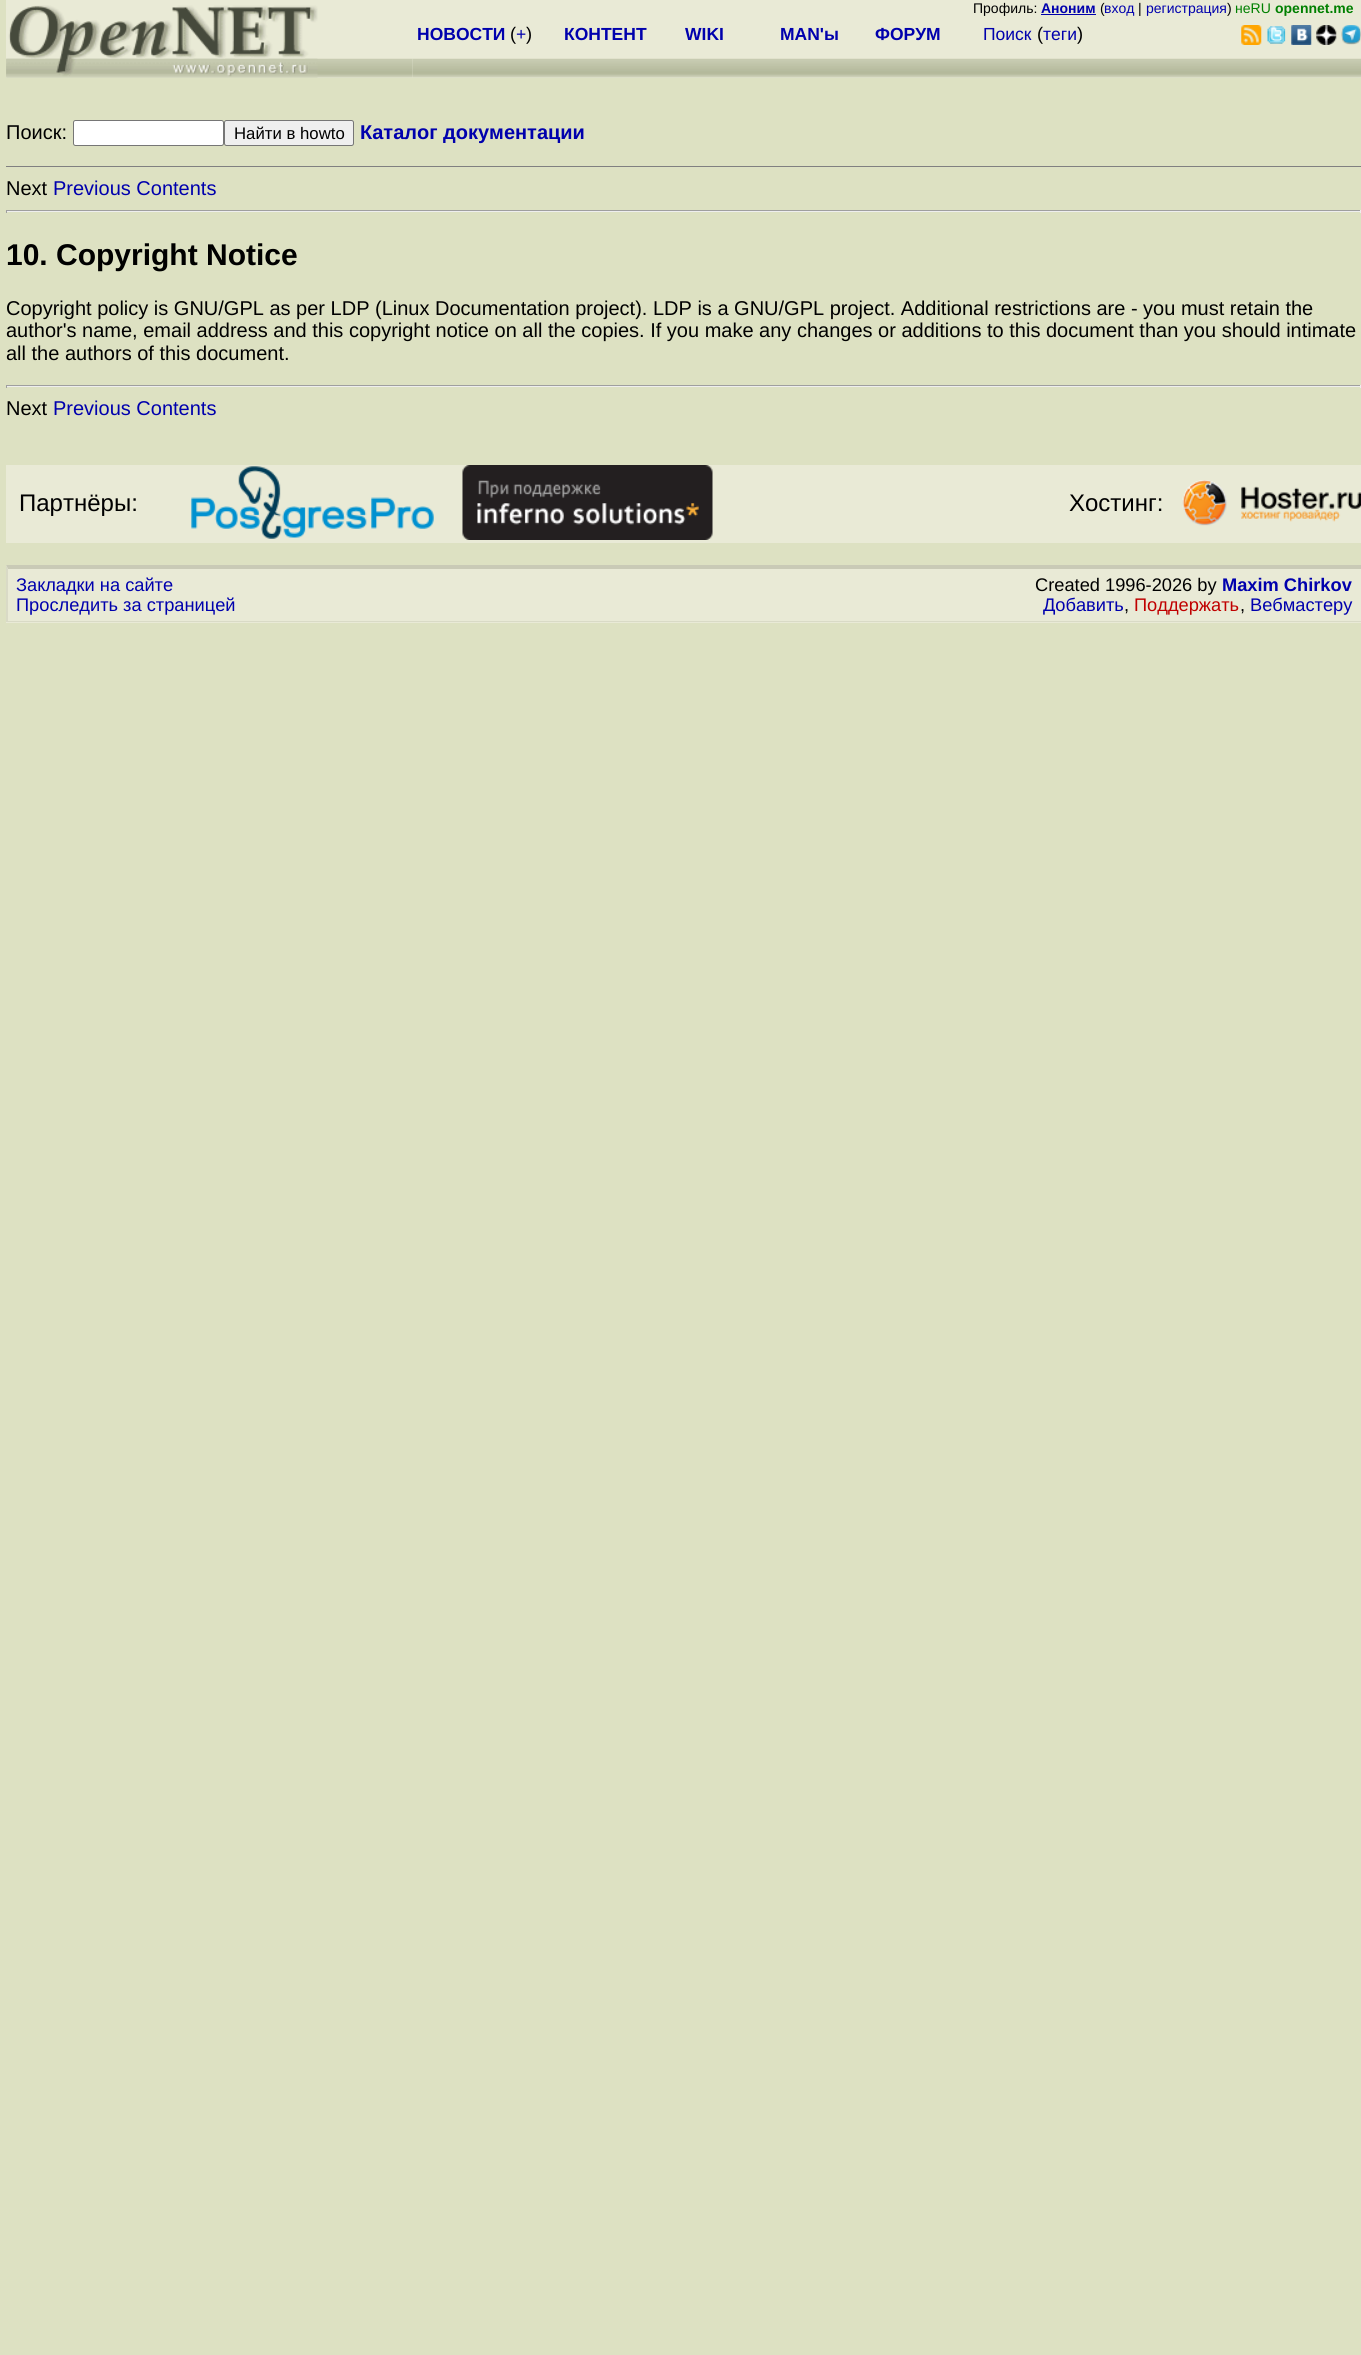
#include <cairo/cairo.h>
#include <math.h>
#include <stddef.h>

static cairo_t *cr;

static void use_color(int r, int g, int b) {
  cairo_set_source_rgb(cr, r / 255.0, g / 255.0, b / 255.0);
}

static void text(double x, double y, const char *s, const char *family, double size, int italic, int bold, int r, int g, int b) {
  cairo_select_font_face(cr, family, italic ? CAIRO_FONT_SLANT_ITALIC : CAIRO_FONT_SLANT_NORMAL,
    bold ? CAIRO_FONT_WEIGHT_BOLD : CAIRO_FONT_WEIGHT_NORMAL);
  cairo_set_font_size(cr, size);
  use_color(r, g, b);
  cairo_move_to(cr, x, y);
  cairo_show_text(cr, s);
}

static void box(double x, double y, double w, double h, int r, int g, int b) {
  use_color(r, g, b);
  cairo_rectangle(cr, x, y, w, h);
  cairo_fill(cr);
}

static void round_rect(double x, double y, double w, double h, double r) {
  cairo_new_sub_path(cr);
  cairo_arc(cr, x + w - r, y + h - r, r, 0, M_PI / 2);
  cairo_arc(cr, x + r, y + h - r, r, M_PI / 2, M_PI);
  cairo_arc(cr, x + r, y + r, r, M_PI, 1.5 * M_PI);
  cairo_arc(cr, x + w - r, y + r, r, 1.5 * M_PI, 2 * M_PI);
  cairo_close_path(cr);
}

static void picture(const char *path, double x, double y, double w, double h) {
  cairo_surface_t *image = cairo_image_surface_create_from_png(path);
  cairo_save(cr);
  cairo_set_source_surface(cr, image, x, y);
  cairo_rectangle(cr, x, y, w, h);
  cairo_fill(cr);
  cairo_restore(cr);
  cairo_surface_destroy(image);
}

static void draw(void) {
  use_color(221, 225, 194);
  cairo_paint(cr);
  box(6, 0, 1355, 3, 233, 234, 214);
  box(6, 3, 1355, 75, 233, 234, 214);
  box(1041, 14, 55, 1, 0, 0, 173);
  picture("img_01.png", 6, 58, 344, 20);
  picture("img_02.png", 6, 5, 312, 73);
  picture("img_10.png", 350, 58, 63, 20);
  picture("img_03.png", 412, 58, 678, 20);
  picture("img_04.png", 1090, 58, 271, 20);
  picture("img_05.png", 1241, 25, 21, 20);
  picture("img_06.png", 1267, 26, 19, 18);
  picture("img_07.png", 1291, 25, 21, 20);
  picture("img_08.png", 1316, 25, 21, 20);
  picture("img_09.png", 1341, 25, 20, 20);
  use_color(255, 255, 255);
  round_rect(73.5, 120.5, 150, 25, 2);
  cairo_fill_preserve(cr);
  use_color(118, 118, 118);
  cairo_set_line_width(cr, 1);
  cairo_stroke(cr);
  use_color(239, 239, 239);
  round_rect(224.5, 120.5, 129, 25, 2);
  cairo_fill_preserve(cr);
  use_color(118, 118, 118);
  cairo_stroke(cr);
  box(6, 166, 1355, 1, 128, 128, 128);
  box(6, 210, 1355, 1, 159, 159, 159);
  box(1360, 210, 1, 3, 238, 238, 238);
  box(6, 211, 1355, 1, 238, 238, 238);
  box(6, 210, 1, 3, 159, 159, 159);
  box(6, 385, 1355, 1, 159, 159, 159);
  box(1360, 385, 1, 3, 238, 238, 238);
  box(6, 386, 1355, 1, 238, 238, 238);
  box(6, 385, 1, 3, 159, 159, 159);
  box(6, 465, 1355, 78, 233, 234, 214);
  picture("img_11.png", 191, 466, 243, 73);
  picture("img_12.png", 462, 465, 251, 75);
  picture("img_13.png", 1182, 480, 179, 46);
  box(6, 565, 1355, 58, 233, 234, 214);
  use_color(201, 202, 182);
  cairo_new_path(cr);
  cairo_move_to(cr, 6, 565);
  cairo_line_to(cr, 1361, 565);
  cairo_line_to(cr, 1361, 569);
  cairo_line_to(cr, 8, 569);
  cairo_close_path(cr);
  cairo_fill(cr);
  box(6, 621, 1355, 1, 217, 218, 198);
  cairo_new_path(cr);
  cairo_move_to(cr, 6, 622);
  cairo_line_to(cr, 6, 565);
  cairo_line_to(cr, 8, 569);
  cairo_line_to(cr, 8, 621);
  cairo_close_path(cr);
  cairo_fill(cr);
  text(973, 13, "Профиль:", "Liberation Sans", 14, 0, 0, 0, 0, 0);
  text(1041, 13, "Аноним", "Liberation Sans", 14, 0, 1, 0, 0, 173);
  text(1100, 13, "(", "Liberation Sans", 14, 0, 0, 0, 0, 0);
  text(1104, 13, "вход", "Liberation Sans", 14, 0, 0, 0, 0, 173);
  text(1138, 13, "|", "Liberation Sans", 14, 0, 0, 0, 0, 0);
  text(1146, 13, "регистрация", "Liberation Sans", 14, 0, 0, 0, 0, 173);
  text(1227, 13, ")", "Liberation Sans", 14, 0, 0, 0, 0, 0);
  text(1235, 13, "неRU", "Liberation Sans", 14, 0, 0, 0, 128, 0);
  text(1275, 13, "opennet.me", "Liberation Sans", 14, 0, 1, 0, 128, 0);
  text(417, 40, "НОВОСТИ", "Liberation Sans", 17.5, 0, 1, 0, 0, 173);
  text(510, 40, "(", "Liberation Sans", 18.25, 0, 0, 0, 0, 0);
  text(516, 40, "+", "Liberation Sans", 17.5, 0, 0, 0, 0, 173);
  text(526, 40, ")", "Liberation Sans", 18.25, 0, 0, 0, 0, 0);
  text(564, 40, "КОНТЕНТ", "Liberation Sans", 17.5, 0, 1, 0, 0, 173);
  text(685, 40, "WIKI", "Liberation Sans", 17.5, 0, 1, 0, 0, 173);
  text(780, 40, "MAN'ы", "Liberation Sans", 17.5, 0, 1, 0, 0, 173);
  text(875, 40, "ФОРУМ", "Liberation Sans", 17.5, 0, 1, 0, 0, 173);
  text(983, 40, "Поиск", "Liberation Sans", 17.5, 0, 0, 0, 0, 173);
  text(1037, 40, "(", "Liberation Sans", 18.25, 0, 0, 0, 0, 0);
  text(1043, 40, "теги", "Liberation Sans", 17.5, 0, 0, 0, 0, 173);
  text(1077, 40, ")", "Liberation Sans", 18.25, 0, 0, 0, 0, 0);
  text(6, 139, "Поиск:", "Liberation Sans", 20, 0, 0, 0, 0, 0);
  text(234, 139, "Найти в howto", "Liberation Sans", 16.75, 0, 0, 0, 0, 0);
  text(360, 139, "Каталог документации", "Liberation Sans", 20, 0, 1, 0, 0, 173);
  text(6, 195, "Next", "Liberation Sans", 20, 0, 0, 0, 0, 0);
  text(53, 195, "Previous Contents", "Liberation Sans", 20, 0, 0, 0, 0, 173);
  text(6, 265, "10. Copyright Notice", "Liberation Sans", 30, 0, 1, 0, 0, 0);
  text(6, 315, "Copyright policy is GNU/GPL as per LDP (Linux Documentation project). LDP is a GNU/GPL project. Additional restrictions are - you must retain the", "Liberation Sans", 20, 0, 0, 0, 0, 0);
  text(6, 337, "author's name, email address and this copyright notice on all the copies. If you make any changes or additions to this document than you should intimate", "Liberation Sans", 20, 0, 0, 0, 0, 0);
  text(6, 360, "all the authors of this document.", "Liberation Sans", 20, 0, 0, 0, 0, 0);
  text(6, 415, "Next", "Liberation Sans", 20, 0, 0, 0, 0, 0);
  text(53, 415, "Previous Contents", "Liberation Sans", 20, 0, 0, 0, 0, 173);
  text(19, 511, "Партнёры:", "Liberation Sans", 24, 0, 0, 0, 0, 0);
  text(1069, 511, "Хостинг:", "Liberation Sans", 24, 0, 0, 0, 0, 0);
  text(16, 591, "Закладки на сайте", "Liberation Sans", 18.25, 0, 0, 0, 0, 173);
  text(16, 611, "Проследить за страницей", "Liberation Sans", 18.25, 0, 0, 0, 0, 173);
  text(1035, 591, "Created 1996-2026 by", "Liberation Sans", 18.25, 0, 0, 0, 0, 0);
  text(1222, 591, "Maxim Chirkov", "Liberation Sans", 18.25, 0, 1, 0, 0, 173);
  text(1043, 611, "Добавить", "Liberation Sans", 18.25, 0, 0, 0, 0, 173);
  text(1124, 611, ",", "Liberation Sans", 18.25, 0, 0, 0, 0, 0);
  text(1134, 611, "Поддержать", "Liberation Sans", 18.25, 0, 0, 192, 0, 0);
  text(1240, 611, ",", "Liberation Sans", 18.25, 0, 0, 0, 0, 0);
  text(1250, 611, "Вебмастеру", "Liberation Sans", 18.25, 0, 0, 0, 0, 173);
}

int main(void) {
  cairo_surface_t *surface = cairo_image_surface_create(CAIRO_FORMAT_RGB24, 1361, 2355);
  cr = cairo_create(surface);
  cairo_font_options_t *options = cairo_font_options_create();
  cairo_font_options_set_hint_metrics(options, CAIRO_HINT_METRICS_OFF);
  cairo_font_options_set_hint_style(options, CAIRO_HINT_STYLE_NONE);
  cairo_set_font_options(cr, options);
  cairo_set_miter_limit(cr, 4);
  draw();
  cairo_surface_write_to_png(surface, "out.png");
  cairo_font_options_destroy(options);
  cairo_destroy(cr);
  cairo_surface_destroy(surface);
  return 0;
}
